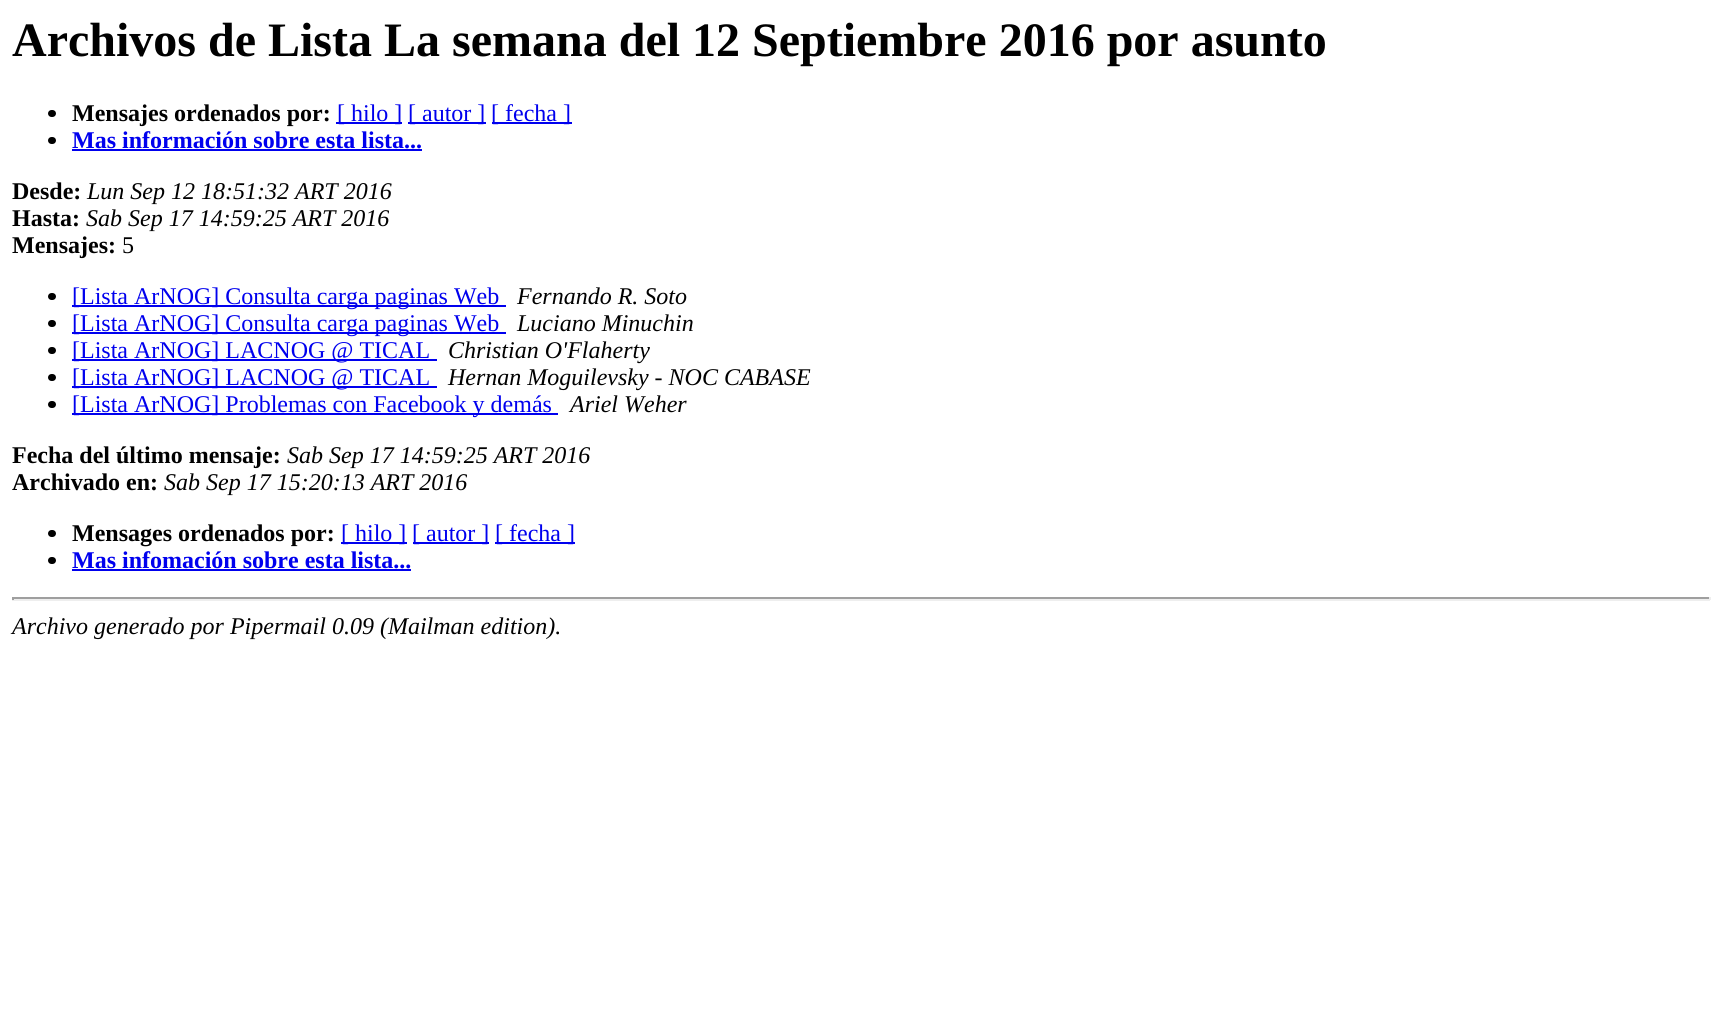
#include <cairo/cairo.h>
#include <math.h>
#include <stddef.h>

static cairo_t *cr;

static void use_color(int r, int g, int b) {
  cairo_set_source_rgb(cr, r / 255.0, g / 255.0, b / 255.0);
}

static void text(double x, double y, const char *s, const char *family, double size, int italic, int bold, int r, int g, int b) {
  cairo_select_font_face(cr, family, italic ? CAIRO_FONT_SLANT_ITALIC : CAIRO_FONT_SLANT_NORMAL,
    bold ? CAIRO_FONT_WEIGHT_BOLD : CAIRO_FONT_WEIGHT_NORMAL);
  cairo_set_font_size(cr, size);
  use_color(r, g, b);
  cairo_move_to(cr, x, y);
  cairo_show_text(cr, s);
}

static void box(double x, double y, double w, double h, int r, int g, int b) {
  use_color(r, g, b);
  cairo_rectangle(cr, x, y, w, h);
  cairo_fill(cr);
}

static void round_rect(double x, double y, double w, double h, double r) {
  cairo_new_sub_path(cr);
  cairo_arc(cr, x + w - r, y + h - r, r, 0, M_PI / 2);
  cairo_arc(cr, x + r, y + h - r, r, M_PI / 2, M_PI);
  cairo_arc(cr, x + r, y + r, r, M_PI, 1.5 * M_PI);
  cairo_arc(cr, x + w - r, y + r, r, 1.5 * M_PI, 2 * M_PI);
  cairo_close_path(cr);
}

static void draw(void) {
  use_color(255, 255, 255);
  cairo_paint(cr);
  use_color(0, 0, 0);
  round_rect(48, 110, 8, 7, 3.5);
  cairo_fill(cr);
  box(336, 122, 66, 2, 0, 0, 238);
  box(408, 122, 78, 2, 0, 0, 238);
  box(492, 122, 80, 2, 0, 0, 238);
  use_color(0, 0, 0);
  round_rect(48, 137, 8, 7, 3.5);
  cairo_fill(cr);
  box(72, 149, 350, 2, 0, 0, 238);
  use_color(0, 0, 0);
  round_rect(48, 293, 8, 7, 3.5);
  cairo_fill(cr);
  box(72, 305, 434, 2, 0, 0, 238);
  use_color(0, 0, 0);
  round_rect(48, 320, 8, 7, 3.5);
  cairo_fill(cr);
  box(72, 332, 434, 2, 0, 0, 238);
  use_color(0, 0, 0);
  round_rect(48, 347, 8, 7, 3.5);
  cairo_fill(cr);
  box(72, 359, 365, 2, 0, 0, 238);
  use_color(0, 0, 0);
  round_rect(48, 374, 8, 7, 3.5);
  cairo_fill(cr);
  box(72, 386, 365, 2, 0, 0, 238);
  use_color(0, 0, 0);
  round_rect(48, 401, 8, 7, 3.5);
  cairo_fill(cr);
  box(72, 413, 486, 2, 0, 0, 238);
  use_color(0, 0, 0);
  round_rect(48, 530, 8, 7, 3.5);
  cairo_fill(cr);
  box(341, 542, 66, 2, 0, 0, 238);
  box(413, 542, 76, 2, 0, 0, 238);
  box(495, 542, 80, 2, 0, 0, 238);
  use_color(0, 0, 0);
  round_rect(48, 557, 8, 7, 3.5);
  cairo_fill(cr);
  box(72, 569, 339, 2, 0, 0, 238);
  box(12, 597, 1698, 2, 159, 159, 159);
  box(1709, 597, 2, 3, 238, 238, 238);
  box(12, 599, 1698, 2, 238, 238, 238);
  box(12, 597, 2, 3, 159, 159, 159);
  text(12, 56, "Archivos de Lista La semana del 12 Septiembre 2016 por asunto", "Liberation Serif", 48, 0, 1, 0, 0, 0);
  text(72, 121, "Mensajes ordenados por:", "Liberation Serif", 24, 0, 1, 0, 0, 0);
  text(337, 121, "[ hilo ]", "Liberation Serif", 24, 0, 0, 0, 0, 238);
  text(408, 121, "[ autor ]", "Liberation Serif", 24, 0, 0, 0, 0, 238);
  text(491, 121, "[ fecha ]", "Liberation Serif", 24, 0, 0, 0, 0, 238);
  text(72, 148, "Mas información sobre esta lista...", "Liberation Serif", 24, 0, 1, 0, 0, 238);
  text(12, 199, "Desde:", "Liberation Serif", 24, 0, 1, 0, 0, 0);
  text(87, 199, "Lun Sep 12 18:51:32 ART 2016", "Liberation Serif", 24, 1, 0, 0, 0, 0);
  text(12, 226, "Hasta:", "Liberation Serif", 24, 0, 1, 0, 0, 0);
  text(86, 226, "Sab Sep 17 14:59:25 ART 2016", "Liberation Serif", 24, 1, 0, 0, 0, 0);
  text(12, 253, "Mensajes:", "Liberation Serif", 24, 0, 1, 0, 0, 0);
  text(122, 253, "5", "Liberation Serif", 24, 0, 0, 0, 0, 0);
  text(72, 304, "[Lista ArNOG] Consulta carga paginas Web", "Liberation Serif", 24, 0, 0, 0, 0, 238);
  text(517, 304, "Fernando R. Soto", "Liberation Serif", 24, 1, 0, 0, 0, 0);
  text(72, 331, "[Lista ArNOG] Consulta carga paginas Web", "Liberation Serif", 24, 0, 0, 0, 0, 238);
  text(517, 331, "Luciano Minuchin", "Liberation Serif", 24, 1, 0, 0, 0, 0);
  text(72, 358, "[Lista ArNOG] LACNOG @ TICAL", "Liberation Serif", 24, 0, 0, 0, 0, 238);
  text(448, 358, "Christian O'Flaherty", "Liberation Serif", 24, 1, 0, 0, 0, 0);
  text(72, 385, "[Lista ArNOG] LACNOG @ TICAL", "Liberation Serif", 24, 0, 0, 0, 0, 238);
  text(448, 385, "Hernan Moguilevsky - NOC CABASE", "Liberation Serif", 24, 1, 0, 0, 0, 0);
  text(72, 412, "[Lista ArNOG] Problemas con Facebook y demás", "Liberation Serif", 24, 0, 0, 0, 0, 238);
  text(570, 412, "Ariel Weher", "Liberation Serif", 24, 1, 0, 0, 0, 0);
  text(12, 463, "Fecha del último mensaje:", "Liberation Serif", 24, 0, 1, 0, 0, 0);
  text(287, 463, "Sab Sep 17 14:59:25 ART 2016", "Liberation Serif", 24, 1, 0, 0, 0, 0);
  text(12, 490, "Archivado en:", "Liberation Serif", 24, 0, 1, 0, 0, 0);
  text(164, 490, "Sab Sep 17 15:20:13 ART 2016", "Liberation Serif", 24, 1, 0, 0, 0, 0);
  text(72, 541, "Mensages ordenados por:", "Liberation Serif", 24, 0, 1, 0, 0, 0);
  text(341, 541, "[ hilo ]", "Liberation Serif", 24, 0, 0, 0, 0, 238);
  text(412, 541, "[ autor ]", "Liberation Serif", 24, 0, 0, 0, 0, 238);
  text(495, 541, "[ fecha ]", "Liberation Serif", 24, 0, 0, 0, 0, 238);
  text(72, 568, "Mas infomación sobre esta lista...", "Liberation Serif", 24, 0, 1, 0, 0, 238);
  text(12, 634, "Archivo generado por Pipermail 0.09 (Mailman edition).", "Liberation Serif", 24, 1, 0, 0, 0, 0);
}

int main(void) {
  cairo_surface_t *surface = cairo_image_surface_create(CAIRO_FORMAT_RGB24, 1722, 1010);
  cr = cairo_create(surface);
  cairo_font_options_t *options = cairo_font_options_create();
  cairo_font_options_set_hint_metrics(options, CAIRO_HINT_METRICS_OFF);
  cairo_font_options_set_hint_style(options, CAIRO_HINT_STYLE_NONE);
  cairo_set_font_options(cr, options);
  cairo_set_miter_limit(cr, 4);
  draw();
  cairo_surface_write_to_png(surface, "out.png");
  cairo_font_options_destroy(options);
  cairo_destroy(cr);
  cairo_surface_destroy(surface);
  return 0;
}
